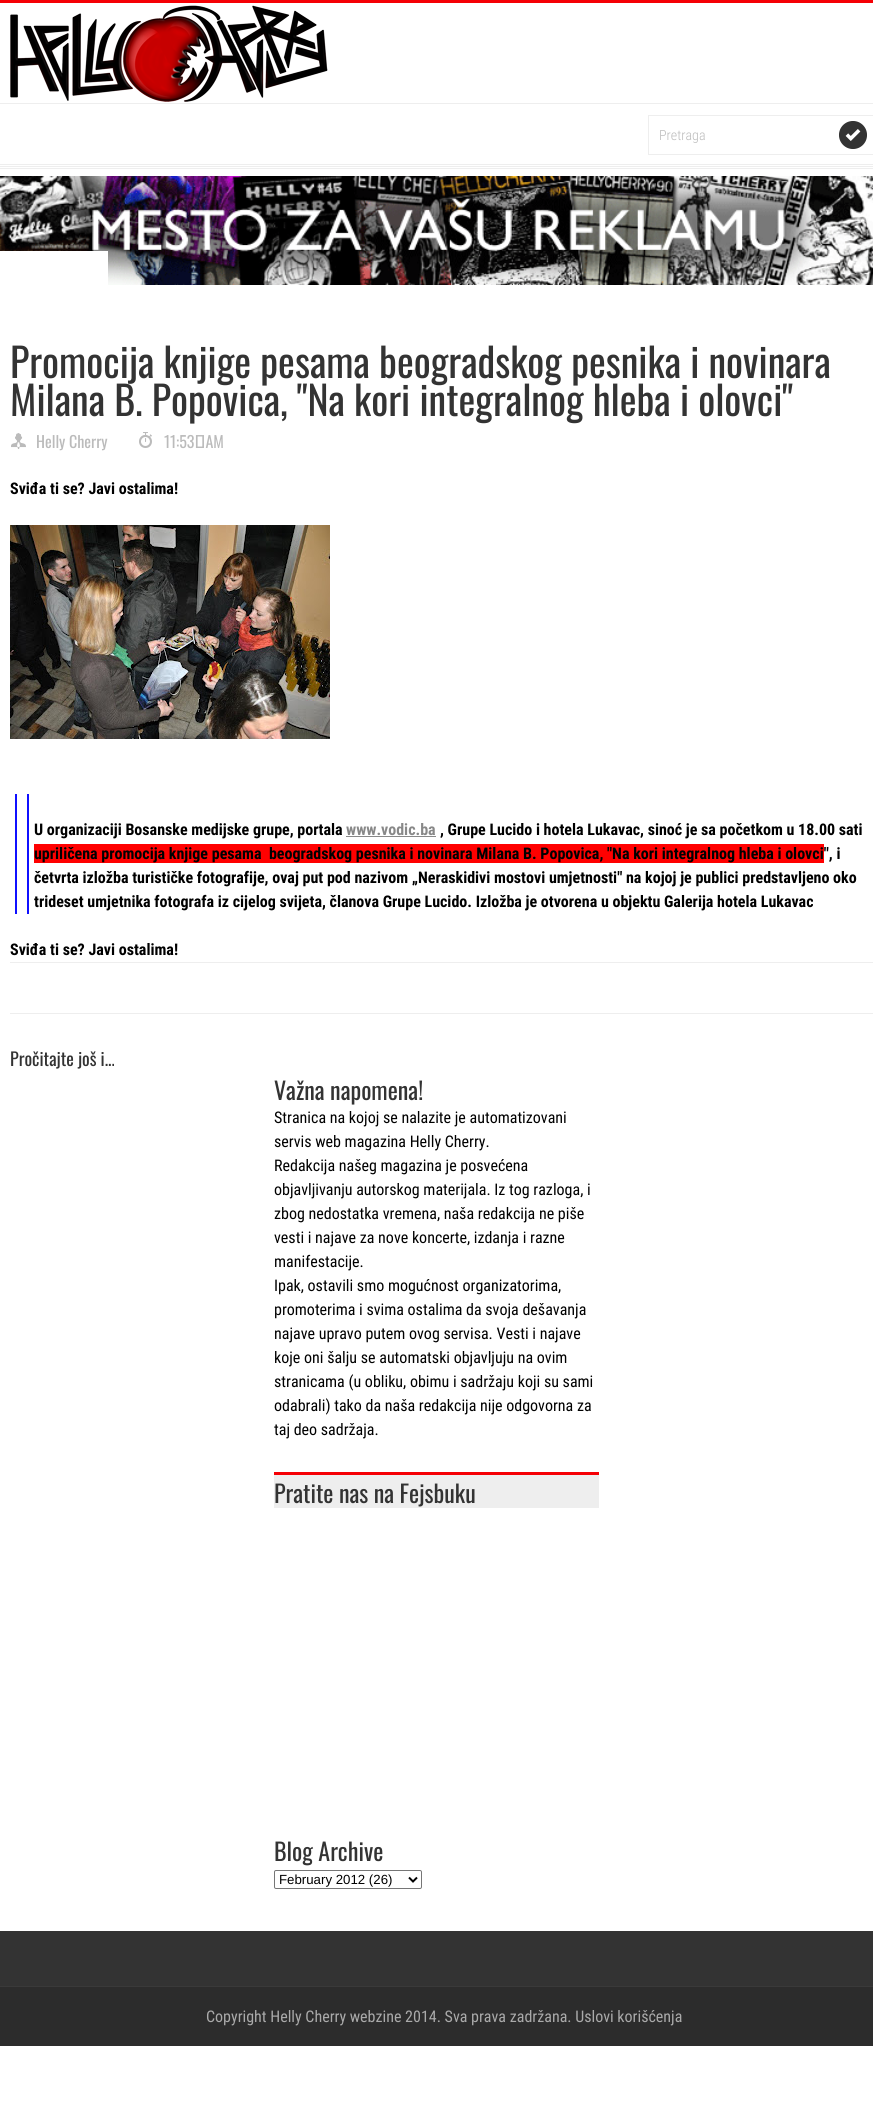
#include <cairo/cairo.h>
#include <math.h>
#include <stddef.h>

static cairo_t *cr;

static void use_color(int r, int g, int b) {
  cairo_set_source_rgb(cr, r / 255.0, g / 255.0, b / 255.0);
}

static void text(double x, double y, const char *s, const char *family, double size, int italic, int bold, int r, int g, int b) {
  cairo_select_font_face(cr, family, italic ? CAIRO_FONT_SLANT_ITALIC : CAIRO_FONT_SLANT_NORMAL,
    bold ? CAIRO_FONT_WEIGHT_BOLD : CAIRO_FONT_WEIGHT_NORMAL);
  cairo_set_font_size(cr, size);
  use_color(r, g, b);
  cairo_move_to(cr, x, y);
  cairo_show_text(cr, s);
}

static void box(double x, double y, double w, double h, int r, int g, int b) {
  use_color(r, g, b);
  cairo_rectangle(cr, x, y, w, h);
  cairo_fill(cr);
}

static void round_rect(double x, double y, double w, double h, double r) {
  cairo_new_sub_path(cr);
  cairo_arc(cr, x + w - r, y + h - r, r, 0, M_PI / 2);
  cairo_arc(cr, x + r, y + h - r, r, M_PI / 2, M_PI);
  cairo_arc(cr, x + r, y + r, r, M_PI, 1.5 * M_PI);
  cairo_arc(cr, x + w - r, y + r, r, 1.5 * M_PI, 2 * M_PI);
  cairo_close_path(cr);
}

static void picture(const char *path, double x, double y, double w, double h) {
  cairo_surface_t *image = cairo_image_surface_create_from_png(path);
  cairo_save(cr);
  cairo_set_source_surface(cr, image, x, y);
  cairo_rectangle(cr, x, y, w, h);
  cairo_fill(cr);
  cairo_restore(cr);
  cairo_surface_destroy(image);
}

static void draw(void) {
  use_color(255, 255, 255);
  cairo_paint(cr);
  box(0, 0, 873, 3, 245, 0, 5);
  picture("img_01.png", 10, 5, 318, 97);
  picture("img_02.png", 0, 176, 873, 109);
  picture("img_03.png", 0, 103, 873, 66);
  cairo_rectangle(cr, 648.5, 115.5, 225, 39);
  use_color(238, 238, 238);
  cairo_set_line_width(cr, 1);
  cairo_stroke(cr);
  picture("img_04.png", 839, 121, 28, 28);
  box(0, 251, 108, 34, 255, 255, 255);
  picture("img_05.png", 11, 433, 15, 16);
  picture("img_06.png", 139, 432, 13, 16);
  picture("img_07.png", 10, 525, 320, 214);
  box(15, 794, 2, 120, 16, 16, 255);
  box(27, 794, 2, 120, 16, 16, 255);
  box(346, 836, 90, 1, 136, 136, 136);
  box(34, 844, 790, 19, 255, 0, 0);
  box(10, 962, 863, 1, 238, 238, 238);
  box(10, 1013, 863, 1, 238, 238, 238);
  box(274, 1475, 325, 33, 238, 238, 238);
  box(274, 1472, 325, 3, 245, 0, 5);
  round_rect(274.5, 1870.5, 147, 18, 1.5);
  use_color(118, 118, 118);
  cairo_stroke(cr);
  cairo_new_path(cr);
  cairo_move_to(cr, 409, 1877.5);
  cairo_line_to(cr, 413, 1881.5);
  cairo_line_to(cr, 417, 1877.5);
  use_color(0, 0, 0);
  cairo_set_line_width(cr, 2);
  cairo_stroke(cr);
  box(0, 1931, 873, 55, 51, 51, 51);
  box(0, 1987, 873, 59, 44, 44, 44);
  box(0, 1986, 873, 1, 58, 58, 58);
  text(659, 140, "Pretraga", "Roboto Condensed Light", 14, 0, 0, 187, 187, 187);
  text(10, 378, "Promocija knjige pesama beogradskog pesnika i novinara", "Oswald", 40, 0, 0, 51, 51, 51);
  text(10, 416, "Milana B. Popovica, \"Na kori integralnog hleba i olovci\"", "Oswald", 40, 0, 0, 51, 51, 51);
  text(36, 448, "Helly Cherry", "Oswald", 16, 0, 0, 187, 187, 187);
  text(164, 448, "11:53 AM", "Oswald", 16, 0, 0, 187, 187, 187);
  text(10, 494, "Sviđa ti se? Javi ostalima!", "Roboto Condensed", 16, 0, 1, 0, 0, 0);
  text(34, 835, "U organizaciji Bosanske medijske grupe, portala", "Roboto Condensed", 16, 0, 1, 0, 0, 0);
  text(346, 835, "www.vodic.ba", "Roboto Condensed", 16, 0, 1, 136, 136, 136);
  text(440, 835, ", Grupe Lucido i hotela Lukavac, sinoć je sa početkom u 18.00 sati", "Roboto Condensed", 16, 0, 1, 0, 0, 0);
  text(34, 859, "upriličena promocija knjige pesama  beogradskog pesnika i novinara Milana B. Popovica, \"Na kori integralnog hleba i olovci\", i", "Roboto Condensed", 16, 0, 1, 0, 0, 0);
  text(34, 883, "četvrta izložba turističke fotografije, ovaj put pod nazivom „Neraskidivi mostovi umjetnosti\" na kojoj je publici predstavljeno oko", "Roboto Condensed", 16, 0, 1, 0, 0, 0);
  text(34, 907, "trideset umjetnika fotografa iz cijelog svijeta, članova Grupe Lucido. Izložba je otvorena u objektu Galerija hotela Lukavac", "Roboto Condensed", 16, 0, 1, 0, 0, 0);
  text(10, 955, "Sviđa ti se? Javi ostalima!", "Roboto Condensed", 16, 0, 1, 0, 0, 0);
  text(10, 1066, "Pročitajte još i...", "Oswald", 18, 0, 0, 51, 51, 51);
  text(274, 1100, "Važna napomena!", "Oswald", 24, 0, 0, 51, 51, 51);
  text(274, 1123, "Stranica na kojoj se nalazite je automatizovani", "Roboto Condensed", 16, 0, 0, 0, 0, 0);
  text(274, 1147, "servis web magazina Helly Cherry.", "Roboto Condensed", 16, 0, 0, 0, 0, 0);
  text(274, 1171, "Redakcija našeg magazina je posvećena", "Roboto Condensed", 16, 0, 0, 0, 0, 0);
  text(274, 1195, "objavljivanju autorskog materijala. Iz tog razloga, i", "Roboto Condensed", 16, 0, 0, 0, 0, 0);
  text(274, 1219, "zbog nedostatka vremena, naša redakcija ne piše", "Roboto Condensed", 16, 0, 0, 0, 0, 0);
  text(274, 1243, "vesti i najave za nove koncerte, izdanja i razne", "Roboto Condensed", 16, 0, 0, 0, 0, 0);
  text(274, 1267, "manifestacije.", "Roboto Condensed", 16, 0, 0, 0, 0, 0);
  text(274, 1291, "Ipak, ostavili smo mogućnost organizatorima,", "Roboto Condensed", 16, 0, 0, 0, 0, 0);
  text(274, 1315, "promoterima i svima ostalima da svoja dešavanja", "Roboto Condensed", 16, 0, 0, 0, 0, 0);
  text(274, 1339, "najave upravo putem ovog servisa. Vesti i najave", "Roboto Condensed", 16, 0, 0, 0, 0, 0);
  text(274, 1363, "koje oni šalju se automatski objavljuju na ovim", "Roboto Condensed", 16, 0, 0, 0, 0, 0);
  text(274, 1387, "stranicama (u obliku, obimu i sadržaju koji su sami", "Roboto Condensed", 16, 0, 0, 0, 0, 0);
  text(274, 1411, "odabrali) tako da naša redakcija nije odgovorna za", "Roboto Condensed", 16, 0, 0, 0, 0, 0);
  text(274, 1435, "taj deo sadržaja.", "Roboto Condensed", 16, 0, 0, 0, 0, 0);
  text(274, 1503, "Pratite nas na Fejsbuku", "Oswald", 24, 0, 0, 51, 51, 51);
  text(274, 1861, "Blog Archive", "Oswald", 24, 0, 0, 51, 51, 51);
  text(279, 1884, "February 2012 (26)", "Liberation Sans", 13.25, 0, 0, 0, 0, 0);
  text(206, 2022, "Copyright Helly Cherry webzine 2014. Sva prava zadržana. Uslovi korišćenja", "Roboto Condensed", 16, 0, 0, 170, 170, 170);
}

int main(void) {
  cairo_surface_t *surface = cairo_image_surface_create(CAIRO_FORMAT_RGB24, 873, 2119);
  cr = cairo_create(surface);
  cairo_font_options_t *options = cairo_font_options_create();
  cairo_font_options_set_hint_metrics(options, CAIRO_HINT_METRICS_OFF);
  cairo_font_options_set_hint_style(options, CAIRO_HINT_STYLE_NONE);
  cairo_set_font_options(cr, options);
  cairo_set_miter_limit(cr, 4);
  draw();
  cairo_surface_write_to_png(surface, "out.png");
  cairo_font_options_destroy(options);
  cairo_destroy(cr);
  cairo_surface_destroy(surface);
  return 0;
}
